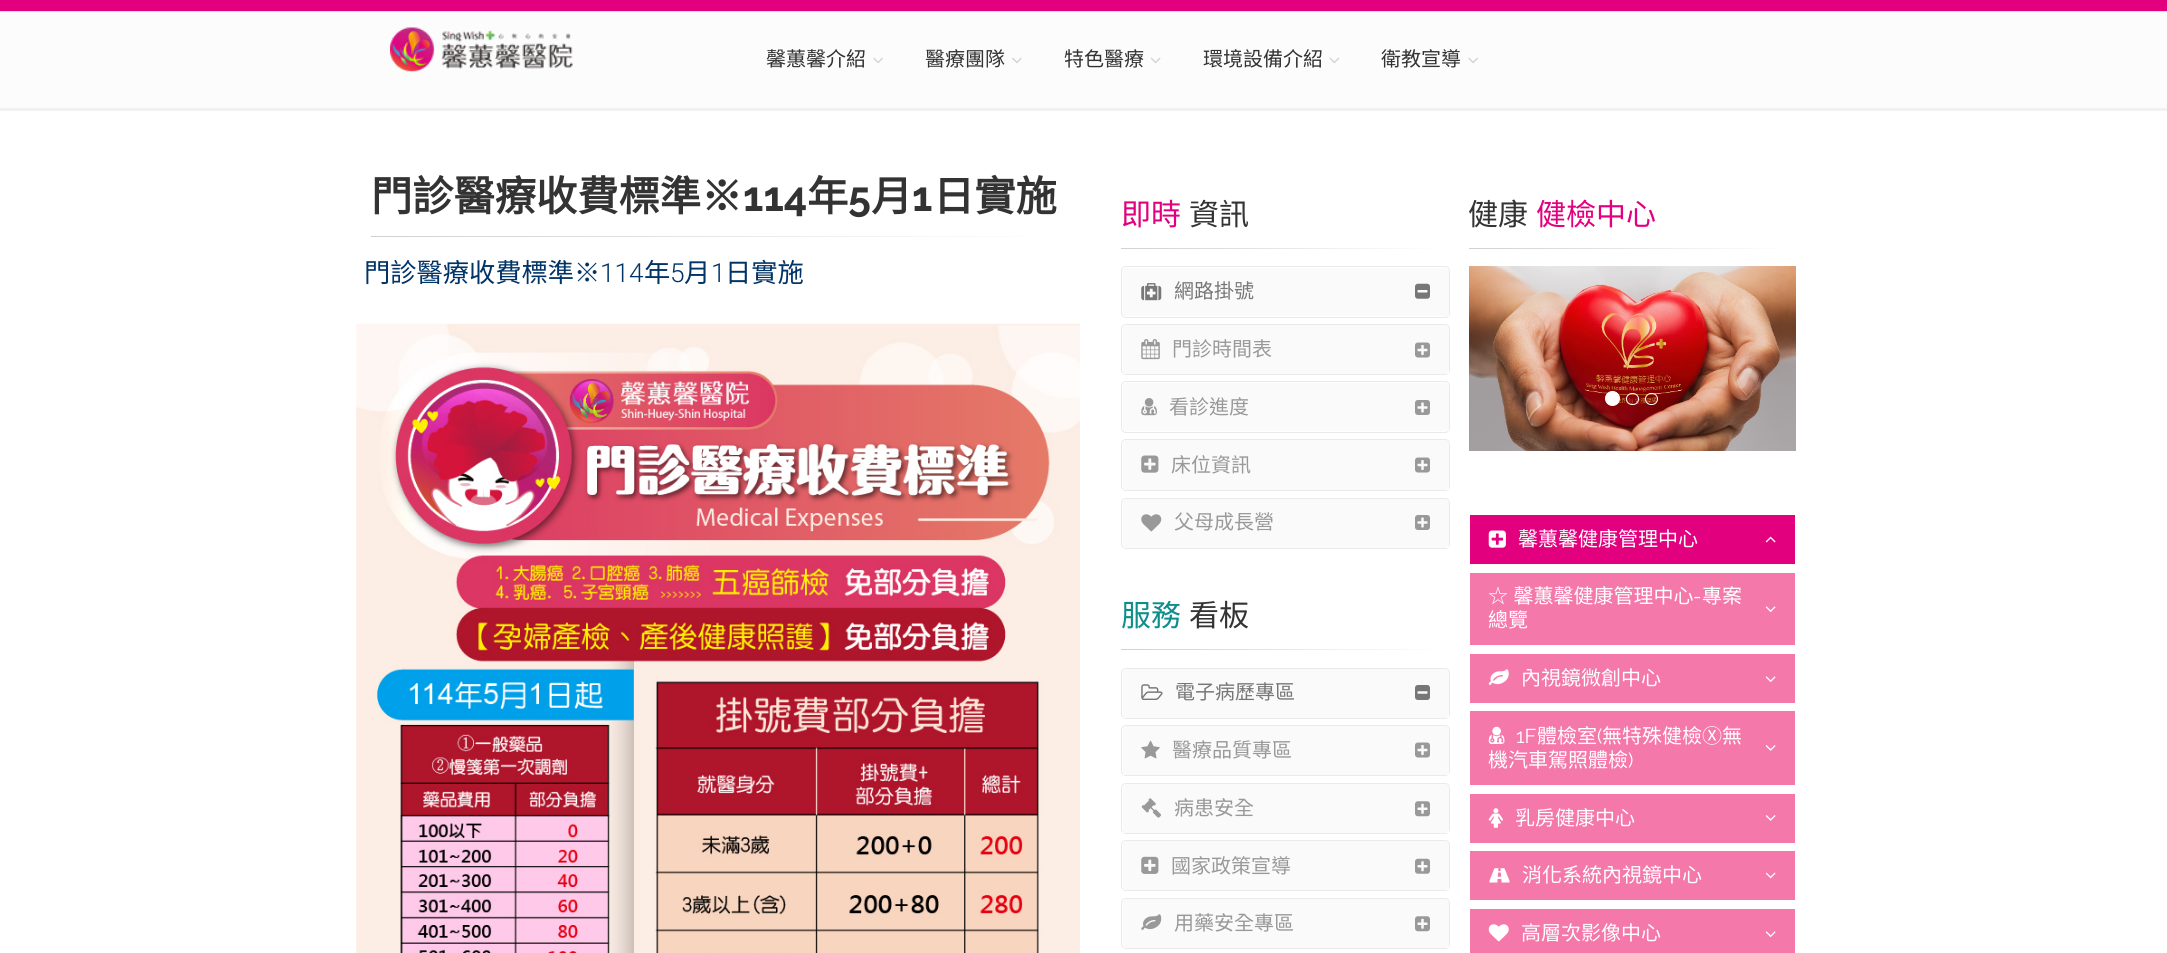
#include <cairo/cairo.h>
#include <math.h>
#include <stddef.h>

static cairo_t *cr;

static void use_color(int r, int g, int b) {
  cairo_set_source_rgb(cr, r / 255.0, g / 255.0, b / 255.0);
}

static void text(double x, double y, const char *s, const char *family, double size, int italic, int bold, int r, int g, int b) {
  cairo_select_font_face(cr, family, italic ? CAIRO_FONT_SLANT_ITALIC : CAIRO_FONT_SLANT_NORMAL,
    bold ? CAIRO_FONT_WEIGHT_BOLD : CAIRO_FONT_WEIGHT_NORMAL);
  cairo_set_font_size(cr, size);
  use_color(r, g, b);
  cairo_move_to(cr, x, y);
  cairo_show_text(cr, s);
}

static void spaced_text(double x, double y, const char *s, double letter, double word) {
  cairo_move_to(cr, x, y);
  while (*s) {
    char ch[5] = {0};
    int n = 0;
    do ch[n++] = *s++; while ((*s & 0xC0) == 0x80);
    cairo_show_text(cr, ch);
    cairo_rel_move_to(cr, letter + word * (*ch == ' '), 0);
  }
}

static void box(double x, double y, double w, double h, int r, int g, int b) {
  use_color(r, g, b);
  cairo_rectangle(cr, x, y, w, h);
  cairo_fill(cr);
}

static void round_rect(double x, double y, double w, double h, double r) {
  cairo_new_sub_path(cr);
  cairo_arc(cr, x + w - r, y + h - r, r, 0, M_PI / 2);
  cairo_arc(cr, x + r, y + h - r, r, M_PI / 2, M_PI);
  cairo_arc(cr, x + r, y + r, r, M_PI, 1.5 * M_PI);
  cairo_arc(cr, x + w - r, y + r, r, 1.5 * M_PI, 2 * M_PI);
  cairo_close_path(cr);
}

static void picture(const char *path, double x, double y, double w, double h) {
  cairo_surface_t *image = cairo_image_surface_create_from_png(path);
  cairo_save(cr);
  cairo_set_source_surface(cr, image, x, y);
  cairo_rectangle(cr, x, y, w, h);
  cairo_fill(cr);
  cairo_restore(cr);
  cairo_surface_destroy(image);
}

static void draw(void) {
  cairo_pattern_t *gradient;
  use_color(255, 255, 255);
  cairo_paint(cr);
  box(0, 0, 2167, 11, 227, 0, 127);
  box(0, 12, 2167, 96, 252, 252, 252);
  box(0, 11, 2167, 1, 221, 221, 221);
  box(0, 108, 2167, 3, 241, 241, 241);
  picture("img_01.png", 390, 27, 183, 45);
  picture("img_02.png", 873, 57, 10, 7);
  picture("img_03.png", 1012, 57, 10, 7);
  picture("img_04.png", 1150, 57, 11, 7);
  picture("img_05.png", 1329, 57, 11, 7);
  picture("img_02.png", 1468, 57, 10, 7);
  gradient = cairo_pattern_create_linear(371, 237, 1065, 237);
  cairo_pattern_add_color_stop_rgba(gradient, 0, 0.82, 0.82, 0.82, 1);
  cairo_pattern_add_color_stop_rgba(gradient, 0.35, 0.878, 0.878, 0.878, 1);
  cairo_pattern_add_color_stop_rgba(gradient, 0.7, 0.949, 0.949, 0.949, 1);
  cairo_pattern_add_color_stop_rgba(gradient, 1, 1, 1, 1, 1);
  cairo_set_source(cr, gradient);
  cairo_pattern_destroy(gradient);
  cairo_rectangle(cr, 371, 236, 654, 1);
  cairo_fill(cr);
  picture("img_06.png", 356, 323, 724, 630);
  gradient = cairo_pattern_create_linear(1121, 248, 1450, 248);
  cairo_pattern_add_color_stop_rgba(gradient, 0, 0.82, 0.82, 0.82, 1);
  cairo_pattern_add_color_stop_rgba(gradient, 0.35, 0.878, 0.878, 0.878, 1);
  cairo_pattern_add_color_stop_rgba(gradient, 0.7, 0.949, 0.949, 0.949, 1);
  cairo_pattern_add_color_stop_rgba(gradient, 1, 1, 1, 1, 1);
  cairo_set_source(cr, gradient);
  cairo_pattern_destroy(gradient);
  cairo_rectangle(cr, 1121, 248, 310, 1);
  cairo_fill(cr);
  round_rect(1121.5, 266.5, 328, 51, 4.5);
  use_color(234, 234, 234);
  cairo_set_line_width(cr, 1);
  cairo_stroke(cr);
  use_color(250, 250, 250);
  cairo_new_path(cr);
  cairo_move_to(cr, 1127, 268);
  cairo_line_to(cr, 1445, 268);
  cairo_curve_to(cr, 1447, 268, 1449, 270, 1449, 272);
  cairo_line_to(cr, 1449, 316);
  cairo_line_to(cr, 1123, 316);
  cairo_line_to(cr, 1123, 272);
  cairo_curve_to(cr, 1123, 270, 1125, 268, 1127, 268);
  cairo_close_path(cr);
  cairo_fill(cr);
  picture("img_07.png", 1141, 283, 21, 18);
  picture("img_08.png", 1415, 283, 15, 16);
  round_rect(1121.5, 324.5, 328, 50, 4.5);
  use_color(234, 234, 234);
  cairo_stroke(cr);
  use_color(250, 250, 250);
  cairo_new_path(cr);
  cairo_move_to(cr, 1127, 325);
  cairo_line_to(cr, 1445, 325);
  cairo_curve_to(cr, 1447, 325, 1449, 327, 1449, 329);
  cairo_line_to(cr, 1449, 374);
  cairo_line_to(cr, 1123, 374);
  cairo_line_to(cr, 1123, 329);
  cairo_curve_to(cr, 1123, 327, 1125, 325, 1127, 325);
  cairo_close_path(cr);
  cairo_fill(cr);
  picture("img_09.png", 1141, 339, 19, 21);
  picture("img_10.png", 1415, 342, 15, 16);
  round_rect(1121.5, 381.5, 328, 51, 4.5);
  use_color(234, 234, 234);
  cairo_stroke(cr);
  use_color(250, 250, 250);
  cairo_new_path(cr);
  cairo_move_to(cr, 1127, 383);
  cairo_line_to(cr, 1445, 383);
  cairo_curve_to(cr, 1447, 383, 1449, 385, 1449, 387);
  cairo_line_to(cr, 1449, 431);
  cairo_line_to(cr, 1123, 431);
  cairo_line_to(cr, 1123, 387);
  cairo_curve_to(cr, 1123, 385, 1125, 383, 1127, 383);
  cairo_close_path(cr);
  cairo_fill(cr);
  picture("img_11.png", 1141, 398, 16, 18);
  picture("img_12.png", 1415, 400, 15, 15);
  round_rect(1121.5, 439.5, 328, 51, 4.5);
  use_color(234, 234, 234);
  cairo_stroke(cr);
  use_color(250, 250, 250);
  cairo_new_path(cr);
  cairo_move_to(cr, 1127, 440);
  cairo_line_to(cr, 1445, 440);
  cairo_curve_to(cr, 1447, 440, 1449, 442, 1449, 444);
  cairo_line_to(cr, 1449, 490);
  cairo_line_to(cr, 1123, 490);
  cairo_line_to(cr, 1123, 444);
  cairo_curve_to(cr, 1123, 442, 1125, 440, 1127, 440);
  cairo_close_path(cr);
  cairo_fill(cr);
  picture("img_13.png", 1141, 455, 18, 18);
  picture("img_10.png", 1415, 457, 15, 16);
  round_rect(1121.5, 498.5, 328, 50, 4.5);
  use_color(234, 234, 234);
  cairo_stroke(cr);
  use_color(250, 250, 250);
  cairo_new_path(cr);
  cairo_move_to(cr, 1127, 499);
  cairo_line_to(cr, 1445, 499);
  cairo_curve_to(cr, 1447, 499, 1449, 501, 1449, 503);
  cairo_line_to(cr, 1449, 548);
  cairo_line_to(cr, 1123, 548);
  cairo_line_to(cr, 1123, 503);
  cairo_curve_to(cr, 1123, 501, 1125, 499, 1127, 499);
  cairo_close_path(cr);
  cairo_fill(cr);
  picture("img_14.png", 1141, 514, 21, 18);
  picture("img_12.png", 1415, 515, 15, 15);
  gradient = cairo_pattern_create_linear(1121, 649, 1450, 649);
  cairo_pattern_add_color_stop_rgba(gradient, 0, 0.82, 0.82, 0.82, 1);
  cairo_pattern_add_color_stop_rgba(gradient, 0.35, 0.878, 0.878, 0.878, 1);
  cairo_pattern_add_color_stop_rgba(gradient, 0.7, 0.949, 0.949, 0.949, 1);
  cairo_pattern_add_color_stop_rgba(gradient, 1, 1, 1, 1, 1);
  cairo_set_source(cr, gradient);
  cairo_pattern_destroy(gradient);
  cairo_rectangle(cr, 1121, 649, 310, 1);
  cairo_fill(cr);
  round_rect(1121.5, 668.5, 328, 50, 4.5);
  use_color(234, 234, 234);
  cairo_stroke(cr);
  use_color(250, 250, 250);
  cairo_new_path(cr);
  cairo_move_to(cr, 1127, 669);
  cairo_line_to(cr, 1445, 669);
  cairo_curve_to(cr, 1447, 669, 1449, 671, 1449, 673);
  cairo_line_to(cr, 1449, 718);
  cairo_line_to(cr, 1123, 718);
  cairo_line_to(cr, 1123, 673);
  cairo_curve_to(cr, 1123, 671, 1125, 669, 1127, 669);
  cairo_close_path(cr);
  cairo_fill(cr);
  picture("img_15.png", 1141, 684, 22, 16);
  picture("img_16.png", 1415, 685, 15, 15);
  round_rect(1121.5, 725.5, 328, 50, 4.5);
  use_color(234, 234, 234);
  cairo_stroke(cr);
  use_color(250, 250, 250);
  cairo_new_path(cr);
  cairo_move_to(cr, 1127, 726);
  cairo_line_to(cr, 1445, 726);
  cairo_curve_to(cr, 1447, 726, 1449, 728, 1449, 730);
  cairo_line_to(cr, 1449, 775);
  cairo_line_to(cr, 1123, 775);
  cairo_line_to(cr, 1123, 730);
  cairo_curve_to(cr, 1123, 728, 1125, 726, 1127, 726);
  cairo_close_path(cr);
  cairo_fill(cr);
  picture("img_17.png", 1141, 740, 19, 19);
  picture("img_10.png", 1415, 742, 15, 16);
  round_rect(1121.5, 783.5, 328, 50, 4.5);
  use_color(234, 234, 234);
  cairo_stroke(cr);
  use_color(250, 250, 250);
  cairo_new_path(cr);
  cairo_move_to(cr, 1127, 784);
  cairo_line_to(cr, 1445, 784);
  cairo_curve_to(cr, 1447, 784, 1449, 786, 1449, 788);
  cairo_line_to(cr, 1449, 833);
  cairo_line_to(cr, 1123, 833);
  cairo_line_to(cr, 1123, 788);
  cairo_curve_to(cr, 1123, 786, 1125, 784, 1127, 784);
  cairo_close_path(cr);
  cairo_fill(cr);
  picture("img_18.png", 1141, 798, 20, 20);
  picture("img_19.png", 1415, 801, 15, 16);
  round_rect(1121.5, 840.5, 328, 50, 4.5);
  use_color(234, 234, 234);
  cairo_stroke(cr);
  use_color(250, 250, 250);
  cairo_new_path(cr);
  cairo_move_to(cr, 1127, 841);
  cairo_line_to(cr, 1445, 841);
  cairo_curve_to(cr, 1447, 841, 1449, 843, 1449, 845);
  cairo_line_to(cr, 1449, 890);
  cairo_line_to(cr, 1123, 890);
  cairo_line_to(cr, 1123, 845);
  cairo_curve_to(cr, 1123, 843, 1125, 841, 1127, 841);
  cairo_close_path(cr);
  cairo_fill(cr);
  picture("img_20.png", 1141, 856, 18, 18);
  picture("img_21.png", 1415, 858, 15, 16);
  round_rect(1121.5, 898.5, 328, 50, 4.5);
  use_color(234, 234, 234);
  cairo_stroke(cr);
  use_color(250, 250, 250);
  cairo_new_path(cr);
  cairo_move_to(cr, 1127, 899);
  cairo_line_to(cr, 1445, 899);
  cairo_curve_to(cr, 1447, 899, 1449, 901, 1449, 903);
  cairo_line_to(cr, 1449, 948);
  cairo_line_to(cr, 1123, 948);
  cairo_line_to(cr, 1123, 903);
  cairo_curve_to(cr, 1123, 901, 1125, 899, 1127, 899);
  cairo_close_path(cr);
  cairo_fill(cr);
  picture("img_22.png", 1141, 914, 21, 16);
  picture("img_19.png", 1415, 916, 15, 16);
  gradient = cairo_pattern_create_linear(1469, 248, 1796, 248);
  cairo_pattern_add_color_stop_rgba(gradient, 0, 0.82, 0.82, 0.82, 1);
  cairo_pattern_add_color_stop_rgba(gradient, 0.35, 0.878, 0.878, 0.878, 1);
  cairo_pattern_add_color_stop_rgba(gradient, 0.7, 0.949, 0.949, 0.949, 1);
  cairo_pattern_add_color_stop_rgba(gradient, 1, 1, 1, 1, 1);
  cairo_set_source(cr, gradient);
  cairo_pattern_destroy(gradient);
  cairo_rectangle(cr, 1469, 248, 308, 1);
  cairo_fill(cr);
  picture("img_23.png", 1469, 266, 327, 185);
  use_color(255, 255, 255);
  cairo_arc(cr, 1612.5, 398.5, 7, 0, 2 * M_PI);
  cairo_fill_preserve(cr);
  cairo_stroke(cr);
  round_rect(1626.5, 393.5, 12, 11, 5.5);
  cairo_stroke(cr);
  round_rect(1645.5, 393.5, 12, 11, 5.5);
  cairo_stroke(cr);
  box(1470, 515, 325, 49, 227, 0, 127);
  picture("img_24.png", 1488, 530, 18, 18);
  picture("img_25.png", 1765, 536, 11, 7);
  box(1470, 573, 325, 72, 244, 120, 170);
  picture("img_26.png", 1765, 606, 11, 6);
  box(1470, 654, 325, 49, 244, 120, 170);
  picture("img_27.png", 1488, 669, 21, 16);
  picture("img_26.png", 1765, 676, 11, 6);
  box(1470, 711, 325, 74, 244, 120, 170);
  picture("img_28.png", 1488, 726, 17, 18);
  picture("img_29.png", 1765, 745, 11, 6);
  box(1470, 794, 325, 49, 244, 120, 170);
  picture("img_30.png", 1488, 808, 15, 20);
  picture("img_29.png", 1765, 815, 11, 6);
  box(1470, 851, 325, 49, 244, 120, 170);
  picture("img_31.png", 1489, 868, 21, 15);
  picture("img_32.png", 1765, 872, 11, 7);
  box(1470, 909, 325, 44, 244, 120, 170);
  picture("img_33.png", 1488, 924, 21, 18);
  picture("img_26.png", 1765, 931, 11, 6);
  text(766, 66, "馨蕙馨介紹", "Noto Sans CJK TC", 20, 0, 0, 51, 51, 51);
  text(925, 66, "醫療團隊", "Noto Sans CJK TC", 20, 0, 0, 51, 51, 51);
  text(1064, 66, "特色醫療", "Noto Sans CJK TC", 20, 0, 0, 51, 51, 51);
  text(1203, 66, "環境設備介紹", "Noto Sans CJK TC", 20, 0, 0, 51, 51, 51);
  text(1381, 66, "衛教宣導", "Noto Sans CJK TC", 20, 0, 0, 51, 51, 51);
  text(371, 211, "門診醫療收費標準※", "Noto Sans CJK TC", 41.25, 0, 1, 51, 51, 51);
  text(743, 211, "114", "Raleway", 41.25, 0, 1, 51, 51, 51);
  text(807, 211, "年", "Noto Sans CJK TC", 41.25, 0, 1, 51, 51, 51);
  text(848, 211, "5", "Raleway", 41.25, 0, 1, 51, 51, 51);
  text(871, 211, "月", "Noto Sans CJK TC", 41.25, 0, 1, 51, 51, 51);
  text(912, 211, "1", "Raleway", 41.25, 0, 1, 51, 51, 51);
  text(933, 211, "日實施", "Noto Sans CJK TC", 41.25, 0, 1, 51, 51, 51);
  text(364, 282, "門診醫療收費標準※", "Noto Sans CJK TC", 26.25, 0, 0, 0, 51, 102);
  text(600, 282, "114", "Roboto Light", 26.25, 0, 0, 0, 51, 102);
  text(644, 282, "年", "Noto Sans CJK TC", 26.25, 0, 0, 0, 51, 102);
  text(670, 282, "5", "Roboto Light", 26.25, 0, 0, 0, 51, 102);
  text(684, 282, "月", "Noto Sans CJK TC", 26.25, 0, 0, 0, 51, 102);
  text(711, 282, "1", "Roboto Light", 26.25, 0, 0, 0, 51, 102);
  text(725, 282, "日實施", "Noto Sans CJK TC", 26.25, 0, 0, 0, 51, 102);
  text(1121, 225, "即時", "Noto Sans CJK TC", 30, 0, 0, 227, 0, 127);
  text(1189, 225, "資訊", "Noto Sans CJK TC", 30, 0, 0, 51, 51, 51);
  text(1174, 298, "網路掛號", "Noto Sans CJK TC", 20, 0, 0, 119, 119, 119);
  text(1172, 356, "門診時間表", "Noto Sans CJK TC", 20, 0, 0, 153, 153, 153);
  text(1169, 414, "看診進度", "Noto Sans CJK TC", 20, 0, 0, 153, 153, 153);
  text(1171, 472, "床位資訊", "Noto Sans CJK TC", 20, 0, 0, 153, 153, 153);
  text(1174, 529, "父母成長營", "Noto Sans CJK TC", 20, 0, 0, 153, 153, 153);
  text(1121, 626, "服務", "Noto Sans CJK TC", 30, 0, 0, 13, 142, 138);
  text(1189, 626, "看板", "Noto Sans CJK TC", 30, 0, 0, 51, 51, 51);
  text(1175, 699, "電子病歷專區", "Noto Sans CJK TC", 20, 0, 0, 119, 119, 119);
  text(1172, 757, "醫療品質專區", "Noto Sans CJK TC", 20, 0, 0, 153, 153, 153);
  text(1174, 815, "病患安全", "Noto Sans CJK TC", 20, 0, 0, 153, 153, 153);
  text(1171, 873, "國家政策宣導", "Noto Sans CJK TC", 20, 0, 0, 153, 153, 153);
  text(1174, 930, "用藥安全專區", "Noto Sans CJK TC", 20, 0, 0, 153, 153, 153);
  text(1468, 225, "健康", "Noto Sans CJK TC", 30, 0, 0, 51, 51, 51);
  text(1536, 225, "健檢中心", "Noto Sans CJK TC", 30, 0, 0, 227, 0, 127);
  text(1518, 546, "馨蕙馨健康管理中心", "Noto Sans CJK TC", 20, 0, 0, 255, 255, 255);
  spaced_text(1488, 603, "☆ 馨蕙馨健康管理中心", 0, 1);
  text(1693, 603, "-", "Raleway", 20, 0, 0, 255, 255, 255);
  text(1702, 603, "專案", "Noto Sans CJK TC", 20, 0, 0, 255, 255, 255);
  text(1488, 627, "總覽", "Noto Sans CJK TC", 20, 0, 0, 255, 255, 255);
  text(1521, 685, "內視鏡微創中心", "Noto Sans CJK TC", 20, 0, 0, 255, 255, 255);
  text(1516, 743, "1F", "Raleway", 20, 0, 0, 255, 255, 255);
  text(1537, 743, "體檢室", "Noto Sans CJK TC", 20, 0, 0, 255, 255, 255);
  text(1597, 743, "(", "Raleway", 20, 0, 0, 255, 255, 255);
  text(1602, 743, "無特殊健檢Ⓧ無", "Noto Sans CJK TC", 20, 0, 0, 255, 255, 255);
  text(1488, 767, "機汽車駕照體檢", "Noto Sans CJK TC", 20, 0, 0, 255, 255, 255);
  text(1628, 767, ")", "Raleway", 20, 0, 0, 255, 255, 255);
  text(1515, 825, "乳房健康中心", "Noto Sans CJK TC", 20, 0, 0, 255, 255, 255);
  text(1522, 882, "消化系統內視鏡中心", "Noto Sans CJK TC", 20, 0, 0, 255, 255, 255);
  text(1521, 940, "高層次影像中心", "Noto Sans CJK TC", 20, 0, 0, 255, 255, 255);
}

int main(void) {
  cairo_surface_t *surface = cairo_image_surface_create(CAIRO_FORMAT_RGB24, 2167, 953);
  cr = cairo_create(surface);
  cairo_font_options_t *options = cairo_font_options_create();
  cairo_font_options_set_hint_metrics(options, CAIRO_HINT_METRICS_OFF);
  cairo_font_options_set_hint_style(options, CAIRO_HINT_STYLE_NONE);
  cairo_set_font_options(cr, options);
  cairo_set_miter_limit(cr, 4);
  draw();
  cairo_surface_write_to_png(surface, "out.png");
  cairo_font_options_destroy(options);
  cairo_destroy(cr);
  cairo_surface_destroy(surface);
  return 0;
}
